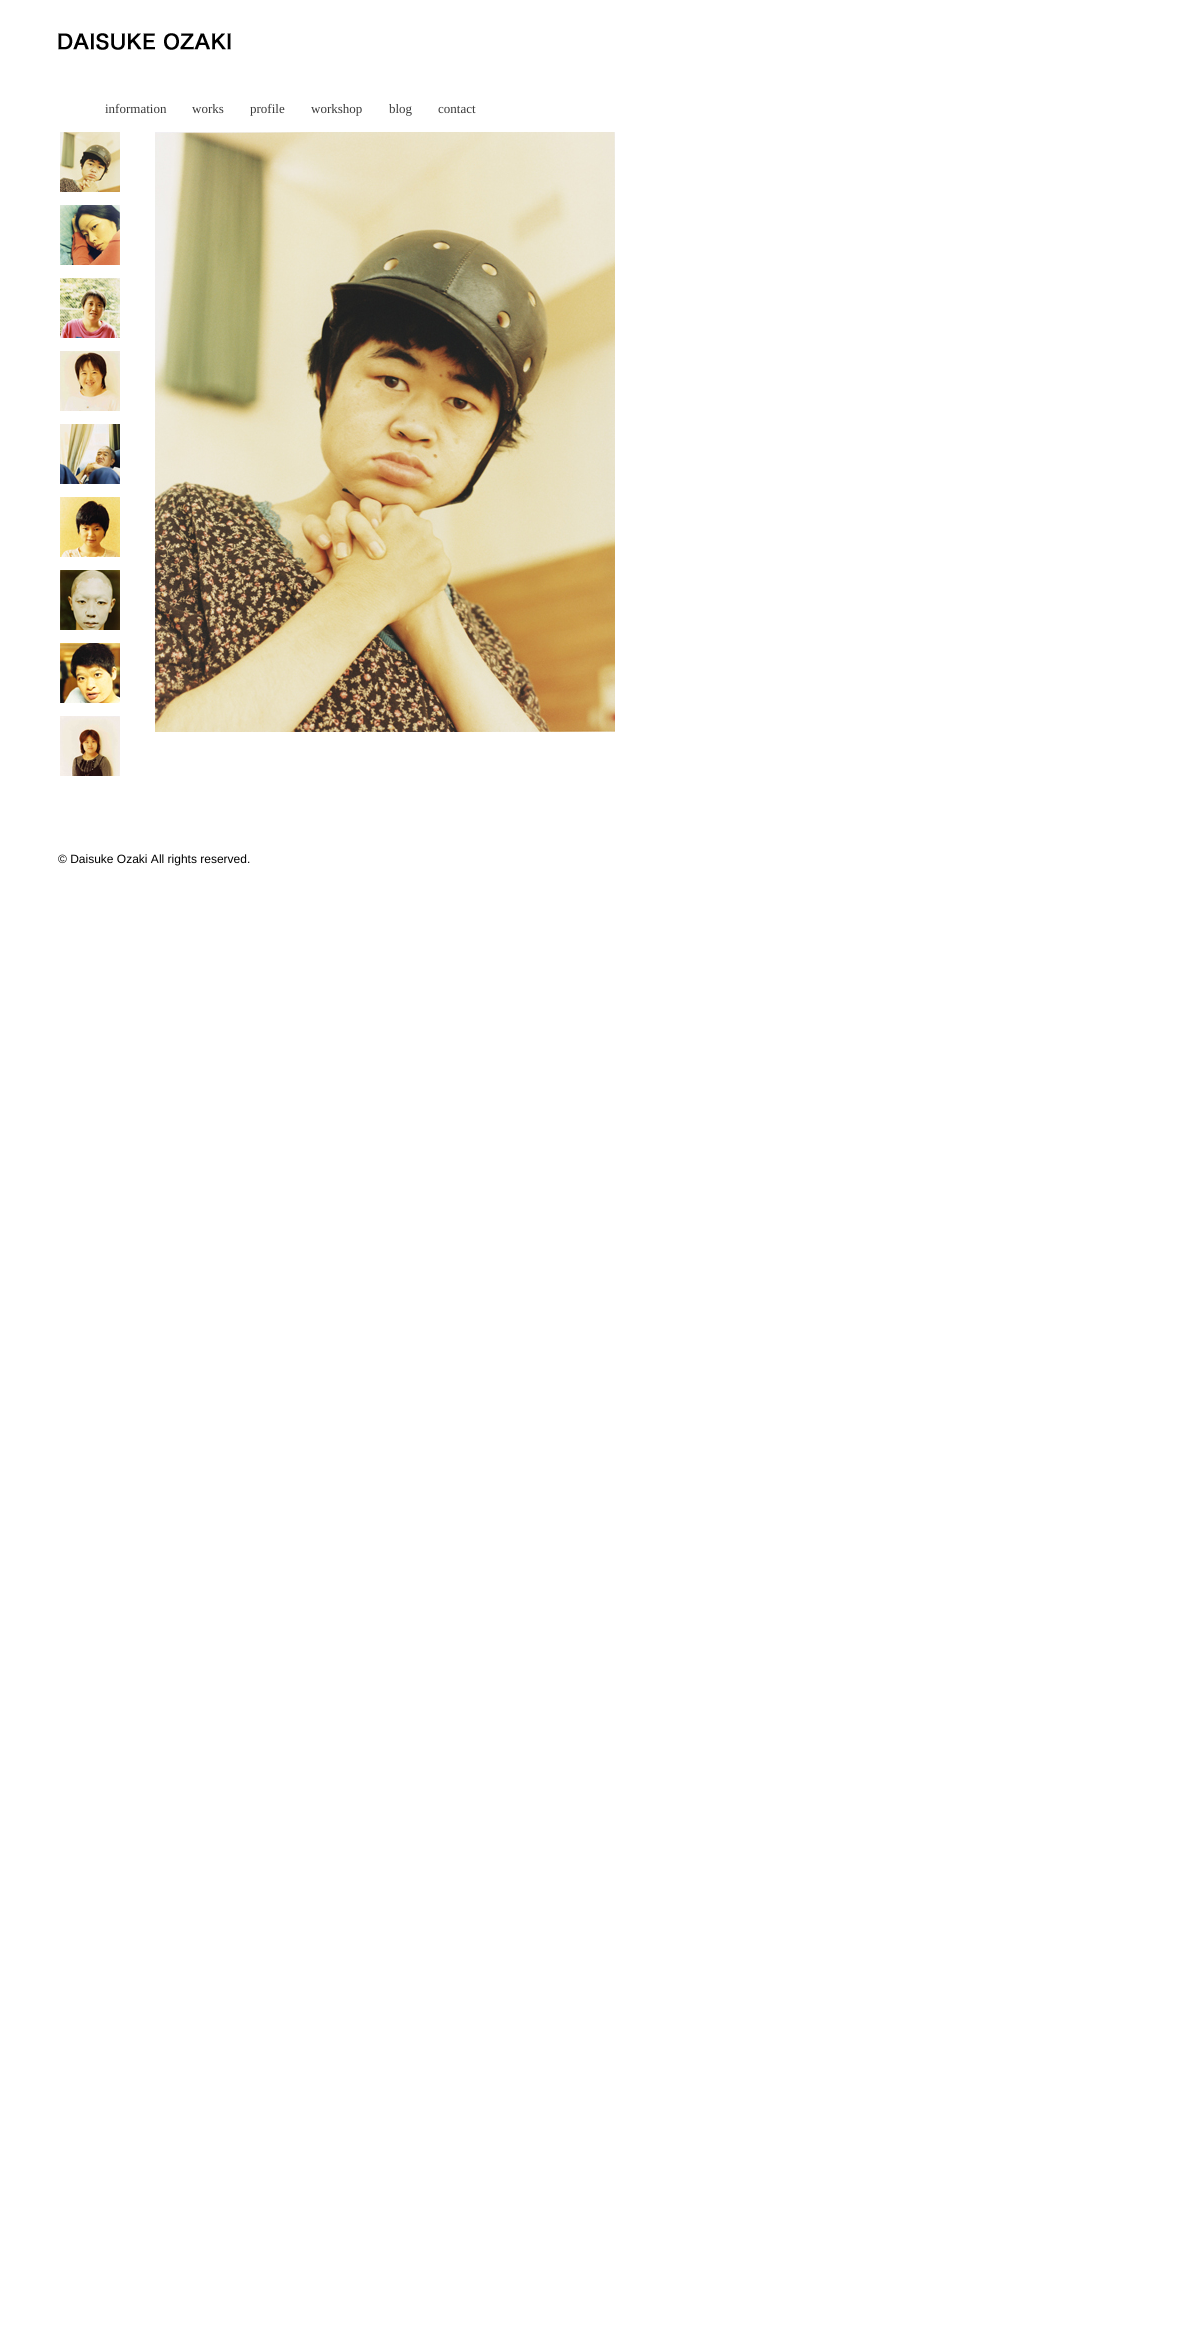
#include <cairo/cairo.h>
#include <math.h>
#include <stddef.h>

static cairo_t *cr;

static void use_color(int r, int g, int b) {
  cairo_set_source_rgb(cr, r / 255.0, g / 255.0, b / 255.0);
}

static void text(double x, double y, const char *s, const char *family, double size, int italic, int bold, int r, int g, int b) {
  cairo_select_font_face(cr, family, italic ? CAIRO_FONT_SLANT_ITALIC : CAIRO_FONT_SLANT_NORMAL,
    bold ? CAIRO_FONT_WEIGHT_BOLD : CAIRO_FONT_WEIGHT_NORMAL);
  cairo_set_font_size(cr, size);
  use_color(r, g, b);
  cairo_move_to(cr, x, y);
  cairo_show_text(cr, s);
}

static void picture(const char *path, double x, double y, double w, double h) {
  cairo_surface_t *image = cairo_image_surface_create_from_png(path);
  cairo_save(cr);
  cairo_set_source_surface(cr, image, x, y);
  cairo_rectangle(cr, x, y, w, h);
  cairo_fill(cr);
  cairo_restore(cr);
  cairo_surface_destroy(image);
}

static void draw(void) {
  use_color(255, 255, 255);
  cairo_paint(cr);
  picture("img_01.png", 58, 33, 173, 17);
  picture("img_02.png", 60, 132, 60, 60);
  picture("img_03.png", 60, 205, 60, 60);
  picture("img_04.png", 60, 278, 60, 60);
  picture("img_05.png", 60, 351, 60, 60);
  picture("img_06.png", 60, 424, 60, 60);
  picture("img_07.png", 60, 497, 60, 60);
  picture("img_08.png", 60, 570, 60, 60);
  picture("img_09.png", 60, 643, 60, 60);
  picture("img_10.png", 60, 716, 60, 60);
  picture("img_11.png", 155, 132, 460, 600);
  text(105, 113, "information", "Liberation Serif", 13, 0, 0, 57, 57, 57);
  text(192, 113, "works", "Liberation Serif", 13, 0, 0, 57, 57, 57);
  text(250, 113, "profile", "Liberation Serif", 13, 0, 0, 57, 57, 57);
  text(311, 113, "workshop", "Liberation Serif", 13, 0, 0, 57, 57, 57);
  text(389, 113, "blog", "Liberation Serif", 13, 0, 0, 57, 57, 57);
  text(438, 113, "contact", "Liberation Serif", 13, 0, 0, 57, 57, 57);
  text(58, 863, "© Daisuke Ozaki All rights reserved.", "Liberation Sans", 12, 0, 0, 0, 0, 0);
}

int main(void) {
  cairo_surface_t *surface = cairo_image_surface_create(CAIRO_FORMAT_RGB24, 1200, 2350);
  cr = cairo_create(surface);
  cairo_font_options_t *options = cairo_font_options_create();
  cairo_font_options_set_hint_metrics(options, CAIRO_HINT_METRICS_OFF);
  cairo_font_options_set_hint_style(options, CAIRO_HINT_STYLE_NONE);
  cairo_set_font_options(cr, options);
  cairo_set_miter_limit(cr, 4);
  draw();
  cairo_surface_write_to_png(surface, "out.png");
  cairo_font_options_destroy(options);
  cairo_destroy(cr);
  cairo_surface_destroy(surface);
  return 0;
}
